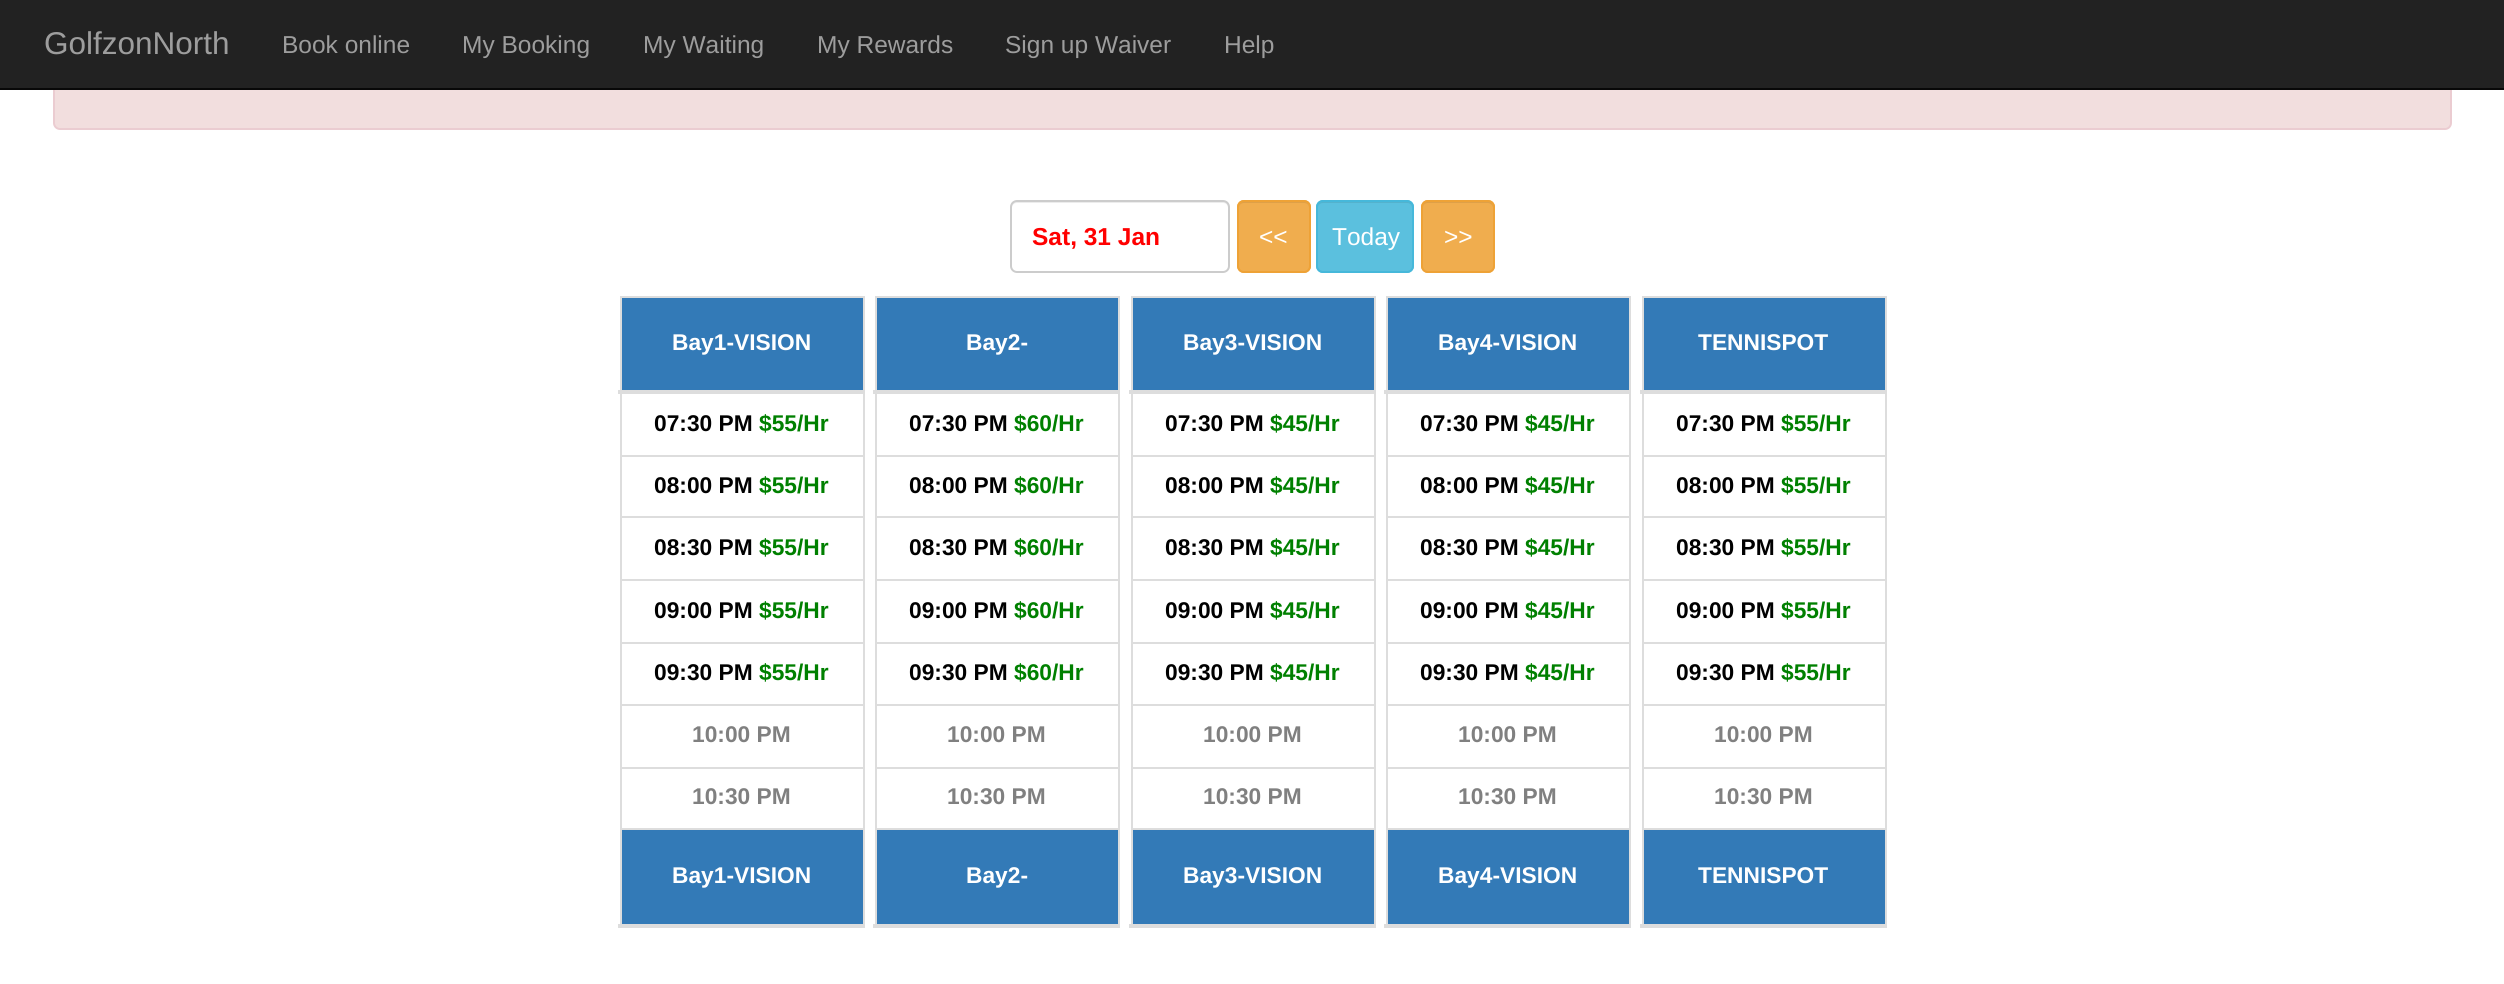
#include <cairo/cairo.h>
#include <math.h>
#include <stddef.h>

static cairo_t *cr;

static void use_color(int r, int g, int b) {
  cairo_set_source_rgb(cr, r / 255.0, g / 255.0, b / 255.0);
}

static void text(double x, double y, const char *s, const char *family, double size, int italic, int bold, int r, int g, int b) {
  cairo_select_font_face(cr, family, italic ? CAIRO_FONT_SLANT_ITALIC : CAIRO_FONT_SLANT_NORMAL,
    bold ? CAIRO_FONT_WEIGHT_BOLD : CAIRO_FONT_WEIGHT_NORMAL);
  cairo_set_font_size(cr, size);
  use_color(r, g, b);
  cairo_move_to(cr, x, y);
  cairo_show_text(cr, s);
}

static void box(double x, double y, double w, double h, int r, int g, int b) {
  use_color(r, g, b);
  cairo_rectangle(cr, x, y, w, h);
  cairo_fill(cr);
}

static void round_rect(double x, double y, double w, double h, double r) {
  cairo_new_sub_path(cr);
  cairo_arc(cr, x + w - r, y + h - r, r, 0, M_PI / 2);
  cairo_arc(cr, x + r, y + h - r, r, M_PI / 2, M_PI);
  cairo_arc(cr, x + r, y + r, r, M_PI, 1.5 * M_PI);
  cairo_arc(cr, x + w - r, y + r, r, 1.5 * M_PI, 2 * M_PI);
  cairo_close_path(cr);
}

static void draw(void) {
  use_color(255, 255, 255);
  cairo_paint(cr);
  use_color(242, 222, 222);
  round_rect(54, -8, 2397, 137, 6);
  cairo_fill_preserve(cr);
  use_color(235, 204, 209);
  cairo_stroke(cr);
  box(0, 0, 2504, 88, 34, 34, 34);
  box(0, 88, 2504, 2, 8, 8, 8);
  use_color(236, 236, 236);
  cairo_new_path(cr);
  cairo_move_to(cr, 1017, 203);
  cairo_line_to(cr, 1223, 203);
  cairo_curve_to(cr, 1226, 203, 1228, 205, 1228, 208);
  cairo_line_to(cr, 1228, 269);
  cairo_curve_to(cr, 1229, 268, 1229, 267, 1229, 266);
  cairo_line_to(cr, 1229, 206);
  cairo_curve_to(cr, 1229, 203, 1227, 201, 1224, 201);
  cairo_line_to(cr, 1017, 201);
  cairo_curve_to(cr, 1014, 201, 1012, 203, 1012, 206);
  cairo_line_to(cr, 1012, 208);
  cairo_curve_to(cr, 1012, 205, 1014, 203, 1017, 203);
  cairo_close_path(cr);
  cairo_fill(cr);
  round_rect(1011, 201, 218, 71, 6);
  use_color(204, 204, 204);
  cairo_stroke(cr);
  use_color(240, 173, 78);
  round_rect(1237, 200, 74, 73, 7);
  cairo_fill(cr);
  use_color(222, 160, 72);
  cairo_new_path(cr);
  cairo_move_to(cr, 1244, 203);
  cairo_line_to(cr, 1304, 203);
  cairo_curve_to(cr, 1307, 203, 1309, 205, 1309, 208);
  cairo_curve_to(cr, 1309, 199, 1302, 201, 1294, 201);
  cairo_line_to(cr, 1254, 201);
  cairo_curve_to(cr, 1246, 201, 1239, 199, 1239, 208);
  cairo_curve_to(cr, 1239, 205, 1241, 203, 1244, 203);
  cairo_close_path(cr);
  cairo_fill(cr);
  round_rect(1238, 201, 72, 71, 6);
  use_color(238, 162, 54);
  cairo_stroke(cr);
  use_color(91, 192, 222);
  round_rect(1316, 200, 98, 73, 7);
  cairo_fill(cr);
  use_color(84, 178, 205);
  cairo_new_path(cr);
  cairo_move_to(cr, 1323, 203);
  cairo_line_to(cr, 1407, 203);
  cairo_curve_to(cr, 1410, 203, 1412, 205, 1412, 208);
  cairo_curve_to(cr, 1412, 197, 1402, 201, 1393, 201);
  cairo_line_to(cr, 1337, 201);
  cairo_curve_to(cr, 1328, 201, 1318, 197, 1318, 208);
  cairo_curve_to(cr, 1318, 205, 1320, 203, 1323, 203);
  cairo_close_path(cr);
  cairo_fill(cr);
  round_rect(1317, 201, 96, 71, 6);
  use_color(70, 184, 218);
  cairo_stroke(cr);
  use_color(240, 173, 78);
  round_rect(1421, 200, 74, 73, 7);
  cairo_fill(cr);
  use_color(222, 160, 72);
  cairo_new_path(cr);
  cairo_move_to(cr, 1428, 203);
  cairo_line_to(cr, 1488, 203);
  cairo_curve_to(cr, 1490, 203, 1493, 205, 1493, 208);
  cairo_curve_to(cr, 1493, 199, 1486, 201, 1478, 201);
  cairo_line_to(cr, 1438, 201);
  cairo_curve_to(cr, 1430, 201, 1423, 199, 1423, 208);
  cairo_curve_to(cr, 1423, 205, 1425, 203, 1428, 203);
  cairo_close_path(cr);
  cairo_fill(cr);
  round_rect(1422, 201, 72, 71, 6);
  use_color(238, 162, 54);
  cairo_stroke(cr);
  box(620, 296, 245, 2, 221, 221, 221);
  box(863, 296, 2, 632, 221, 221, 221);
  box(620, 296, 2, 632, 221, 221, 221);
  box(622, 298, 241, 92, 51, 122, 183);
  box(618, 390, 247, 4, 221, 221, 221);
  box(620, 455, 245, 2, 221, 221, 221);
  box(620, 516, 245, 2, 221, 221, 221);
  box(620, 579, 245, 2, 221, 221, 221);
  box(620, 642, 245, 2, 221, 221, 221);
  box(620, 704, 245, 2, 221, 221, 221);
  box(620, 767, 245, 2, 221, 221, 221);
  box(622, 830, 241, 94, 51, 122, 183);
  box(620, 828, 245, 2, 221, 221, 221);
  box(618, 924, 247, 4, 221, 221, 221);
  box(875, 296, 245, 2, 221, 221, 221);
  box(1118, 296, 2, 632, 221, 221, 221);
  box(875, 296, 2, 632, 221, 221, 221);
  box(877, 298, 241, 92, 51, 122, 183);
  box(873, 390, 247, 4, 221, 221, 221);
  box(875, 455, 245, 2, 221, 221, 221);
  box(875, 516, 245, 2, 221, 221, 221);
  box(875, 579, 245, 2, 221, 221, 221);
  box(875, 642, 245, 2, 221, 221, 221);
  box(875, 704, 245, 2, 221, 221, 221);
  box(875, 767, 245, 2, 221, 221, 221);
  box(877, 830, 241, 94, 51, 122, 183);
  box(875, 828, 245, 2, 221, 221, 221);
  box(873, 924, 247, 4, 221, 221, 221);
  box(1131, 296, 245, 2, 221, 221, 221);
  box(1374, 296, 2, 632, 221, 221, 221);
  box(1131, 296, 2, 632, 221, 221, 221);
  box(1133, 298, 241, 92, 51, 122, 183);
  box(1129, 390, 247, 4, 221, 221, 221);
  box(1131, 455, 245, 2, 221, 221, 221);
  box(1131, 516, 245, 2, 221, 221, 221);
  box(1131, 579, 245, 2, 221, 221, 221);
  box(1131, 642, 245, 2, 221, 221, 221);
  box(1131, 704, 245, 2, 221, 221, 221);
  box(1131, 767, 245, 2, 221, 221, 221);
  box(1133, 830, 241, 94, 51, 122, 183);
  box(1131, 828, 245, 2, 221, 221, 221);
  box(1129, 924, 247, 4, 221, 221, 221);
  box(1386, 296, 245, 2, 221, 221, 221);
  box(1629, 296, 2, 632, 221, 221, 221);
  box(1386, 296, 2, 632, 221, 221, 221);
  box(1388, 298, 241, 92, 51, 122, 183);
  box(1384, 390, 247, 4, 221, 221, 221);
  box(1386, 455, 245, 2, 221, 221, 221);
  box(1386, 516, 245, 2, 221, 221, 221);
  box(1386, 579, 245, 2, 221, 221, 221);
  box(1386, 642, 245, 2, 221, 221, 221);
  box(1386, 704, 245, 2, 221, 221, 221);
  box(1386, 767, 245, 2, 221, 221, 221);
  box(1388, 830, 241, 94, 51, 122, 183);
  box(1386, 828, 245, 2, 221, 221, 221);
  box(1384, 924, 247, 4, 221, 221, 221);
  box(1642, 296, 245, 2, 221, 221, 221);
  box(1885, 296, 2, 632, 221, 221, 221);
  box(1642, 296, 2, 632, 221, 221, 221);
  box(1644, 298, 241, 92, 51, 122, 183);
  box(1640, 390, 247, 4, 221, 221, 221);
  box(1642, 455, 245, 2, 221, 221, 221);
  box(1642, 516, 245, 2, 221, 221, 221);
  box(1642, 579, 245, 2, 221, 221, 221);
  box(1642, 642, 245, 2, 221, 221, 221);
  box(1642, 704, 245, 2, 221, 221, 221);
  box(1642, 767, 245, 2, 221, 221, 221);
  box(1644, 830, 241, 94, 51, 122, 183);
  box(1642, 828, 245, 2, 221, 221, 221);
  box(1640, 924, 247, 4, 221, 221, 221);
  text(44, 54, "GolfzonNorth", "Liberation Sans", 31.5, 0, 0, 157, 157, 157);
  text(282, 53, "Book online", "Liberation Sans", 24.5, 0, 0, 157, 157, 157);
  text(462, 53, "My Booking", "Liberation Sans", 24.5, 0, 0, 157, 157, 157);
  text(643, 53, "My Waiting", "Liberation Sans", 24.5, 0, 0, 157, 157, 157);
  text(817, 53, "My Rewards", "Liberation Sans", 24.5, 0, 0, 157, 157, 157);
  text(1005, 53, "Sign up Waiver", "Liberation Sans", 24.5, 0, 0, 157, 157, 157);
  text(1224, 53, "Help", "Liberation Sans", 24.5, 0, 0, 157, 157, 157);
  text(1032, 245, "Sat, 31 Jan", "Liberation Sans", 24.5, 0, 1, 255, 0, 0);
  text(1259, 245, "<<", "Liberation Sans", 24.5, 0, 0, 255, 255, 255);
  text(1332, 245, "Today", "Liberation Sans", 24.5, 0, 0, 255, 255, 255);
  text(1444, 245, ">>", "Liberation Sans", 24.5, 0, 0, 255, 255, 255);
  text(672, 350, "Bay1-VISION", "Liberation Sans", 22.75, 0, 1, 255, 255, 255);
  text(654, 431, "07:30 PM", "Liberation Sans", 22.75, 0, 1, 0, 0, 0);
  text(759, 431, "$55/Hr", "Liberation Sans", 22.75, 0, 1, 0, 128, 0);
  text(654, 493, "08:00 PM", "Liberation Sans", 22.75, 0, 1, 0, 0, 0);
  text(759, 493, "$55/Hr", "Liberation Sans", 22.75, 0, 1, 0, 128, 0);
  text(654, 555, "08:30 PM", "Liberation Sans", 22.75, 0, 1, 0, 0, 0);
  text(759, 555, "$55/Hr", "Liberation Sans", 22.75, 0, 1, 0, 128, 0);
  text(654, 618, "09:00 PM", "Liberation Sans", 22.75, 0, 1, 0, 0, 0);
  text(759, 618, "$55/Hr", "Liberation Sans", 22.75, 0, 1, 0, 128, 0);
  text(654, 680, "09:30 PM", "Liberation Sans", 22.75, 0, 1, 0, 0, 0);
  text(759, 680, "$55/Hr", "Liberation Sans", 22.75, 0, 1, 0, 128, 0);
  text(692, 742, "10:00 PM", "Liberation Sans", 22.75, 0, 1, 128, 128, 128);
  text(692, 804, "10:30 PM", "Liberation Sans", 22.75, 0, 1, 128, 128, 128);
  text(672, 883, "Bay1-VISION", "Liberation Sans", 22.75, 0, 1, 255, 255, 255);
  text(966, 350, "Bay2-", "Liberation Sans", 22.75, 0, 1, 255, 255, 255);
  text(909, 431, "07:30 PM", "Liberation Sans", 22.75, 0, 1, 0, 0, 0);
  text(1014, 431, "$60/Hr", "Liberation Sans", 22.75, 0, 1, 0, 128, 0);
  text(909, 493, "08:00 PM", "Liberation Sans", 22.75, 0, 1, 0, 0, 0);
  text(1014, 493, "$60/Hr", "Liberation Sans", 22.75, 0, 1, 0, 128, 0);
  text(909, 555, "08:30 PM", "Liberation Sans", 22.75, 0, 1, 0, 0, 0);
  text(1014, 555, "$60/Hr", "Liberation Sans", 22.75, 0, 1, 0, 128, 0);
  text(909, 618, "09:00 PM", "Liberation Sans", 22.75, 0, 1, 0, 0, 0);
  text(1014, 618, "$60/Hr", "Liberation Sans", 22.75, 0, 1, 0, 128, 0);
  text(909, 680, "09:30 PM", "Liberation Sans", 22.75, 0, 1, 0, 0, 0);
  text(1014, 680, "$60/Hr", "Liberation Sans", 22.75, 0, 1, 0, 128, 0);
  text(947, 742, "10:00 PM", "Liberation Sans", 22.75, 0, 1, 128, 128, 128);
  text(947, 804, "10:30 PM", "Liberation Sans", 22.75, 0, 1, 128, 128, 128);
  text(966, 883, "Bay2-", "Liberation Sans", 22.75, 0, 1, 255, 255, 255);
  text(1183, 350, "Bay3-VISION", "Liberation Sans", 22.75, 0, 1, 255, 255, 255);
  text(1165, 431, "07:30 PM", "Liberation Sans", 22.75, 0, 1, 0, 0, 0);
  text(1270, 431, "$45/Hr", "Liberation Sans", 22.75, 0, 1, 0, 128, 0);
  text(1165, 493, "08:00 PM", "Liberation Sans", 22.75, 0, 1, 0, 0, 0);
  text(1270, 493, "$45/Hr", "Liberation Sans", 22.75, 0, 1, 0, 128, 0);
  text(1165, 555, "08:30 PM", "Liberation Sans", 22.75, 0, 1, 0, 0, 0);
  text(1270, 555, "$45/Hr", "Liberation Sans", 22.75, 0, 1, 0, 128, 0);
  text(1165, 618, "09:00 PM", "Liberation Sans", 22.75, 0, 1, 0, 0, 0);
  text(1270, 618, "$45/Hr", "Liberation Sans", 22.75, 0, 1, 0, 128, 0);
  text(1165, 680, "09:30 PM", "Liberation Sans", 22.75, 0, 1, 0, 0, 0);
  text(1270, 680, "$45/Hr", "Liberation Sans", 22.75, 0, 1, 0, 128, 0);
  text(1203, 742, "10:00 PM", "Liberation Sans", 22.75, 0, 1, 128, 128, 128);
  text(1203, 804, "10:30 PM", "Liberation Sans", 22.75, 0, 1, 128, 128, 128);
  text(1183, 883, "Bay3-VISION", "Liberation Sans", 22.75, 0, 1, 255, 255, 255);
  text(1438, 350, "Bay4-VISION", "Liberation Sans", 22.75, 0, 1, 255, 255, 255);
  text(1420, 431, "07:30 PM", "Liberation Sans", 22.75, 0, 1, 0, 0, 0);
  text(1525, 431, "$45/Hr", "Liberation Sans", 22.75, 0, 1, 0, 128, 0);
  text(1420, 493, "08:00 PM", "Liberation Sans", 22.75, 0, 1, 0, 0, 0);
  text(1525, 493, "$45/Hr", "Liberation Sans", 22.75, 0, 1, 0, 128, 0);
  text(1420, 555, "08:30 PM", "Liberation Sans", 22.75, 0, 1, 0, 0, 0);
  text(1525, 555, "$45/Hr", "Liberation Sans", 22.75, 0, 1, 0, 128, 0);
  text(1420, 618, "09:00 PM", "Liberation Sans", 22.75, 0, 1, 0, 0, 0);
  text(1525, 618, "$45/Hr", "Liberation Sans", 22.75, 0, 1, 0, 128, 0);
  text(1420, 680, "09:30 PM", "Liberation Sans", 22.75, 0, 1, 0, 0, 0);
  text(1525, 680, "$45/Hr", "Liberation Sans", 22.75, 0, 1, 0, 128, 0);
  text(1458, 742, "10:00 PM", "Liberation Sans", 22.75, 0, 1, 128, 128, 128);
  text(1458, 804, "10:30 PM", "Liberation Sans", 22.75, 0, 1, 128, 128, 128);
  text(1438, 883, "Bay4-VISION", "Liberation Sans", 22.75, 0, 1, 255, 255, 255);
  text(1698, 350, "TENNISPOT", "Liberation Sans", 22.75, 0, 1, 255, 255, 255);
  text(1676, 431, "07:30 PM", "Liberation Sans", 22.75, 0, 1, 0, 0, 0);
  text(1781, 431, "$55/Hr", "Liberation Sans", 22.75, 0, 1, 0, 128, 0);
  text(1676, 493, "08:00 PM", "Liberation Sans", 22.75, 0, 1, 0, 0, 0);
  text(1781, 493, "$55/Hr", "Liberation Sans", 22.75, 0, 1, 0, 128, 0);
  text(1676, 555, "08:30 PM", "Liberation Sans", 22.75, 0, 1, 0, 0, 0);
  text(1781, 555, "$55/Hr", "Liberation Sans", 22.75, 0, 1, 0, 128, 0);
  text(1676, 618, "09:00 PM", "Liberation Sans", 22.75, 0, 1, 0, 0, 0);
  text(1781, 618, "$55/Hr", "Liberation Sans", 22.75, 0, 1, 0, 128, 0);
  text(1676, 680, "09:30 PM", "Liberation Sans", 22.75, 0, 1, 0, 0, 0);
  text(1781, 680, "$55/Hr", "Liberation Sans", 22.75, 0, 1, 0, 128, 0);
  text(1714, 742, "10:00 PM", "Liberation Sans", 22.75, 0, 1, 128, 128, 128);
  text(1714, 804, "10:30 PM", "Liberation Sans", 22.75, 0, 1, 128, 128, 128);
  text(1698, 883, "TENNISPOT", "Liberation Sans", 22.75, 0, 1, 255, 255, 255);
}

int main(void) {
  cairo_surface_t *surface = cairo_image_surface_create(CAIRO_FORMAT_RGB24, 2504, 984);
  cr = cairo_create(surface);
  cairo_font_options_t *options = cairo_font_options_create();
  cairo_font_options_set_hint_metrics(options, CAIRO_HINT_METRICS_OFF);
  cairo_font_options_set_hint_style(options, CAIRO_HINT_STYLE_NONE);
  cairo_set_font_options(cr, options);
  cairo_set_miter_limit(cr, 4);
  draw();
  cairo_surface_write_to_png(surface, "out.png");
  cairo_font_options_destroy(options);
  cairo_destroy(cr);
  cairo_surface_destroy(surface);
  return 0;
}
